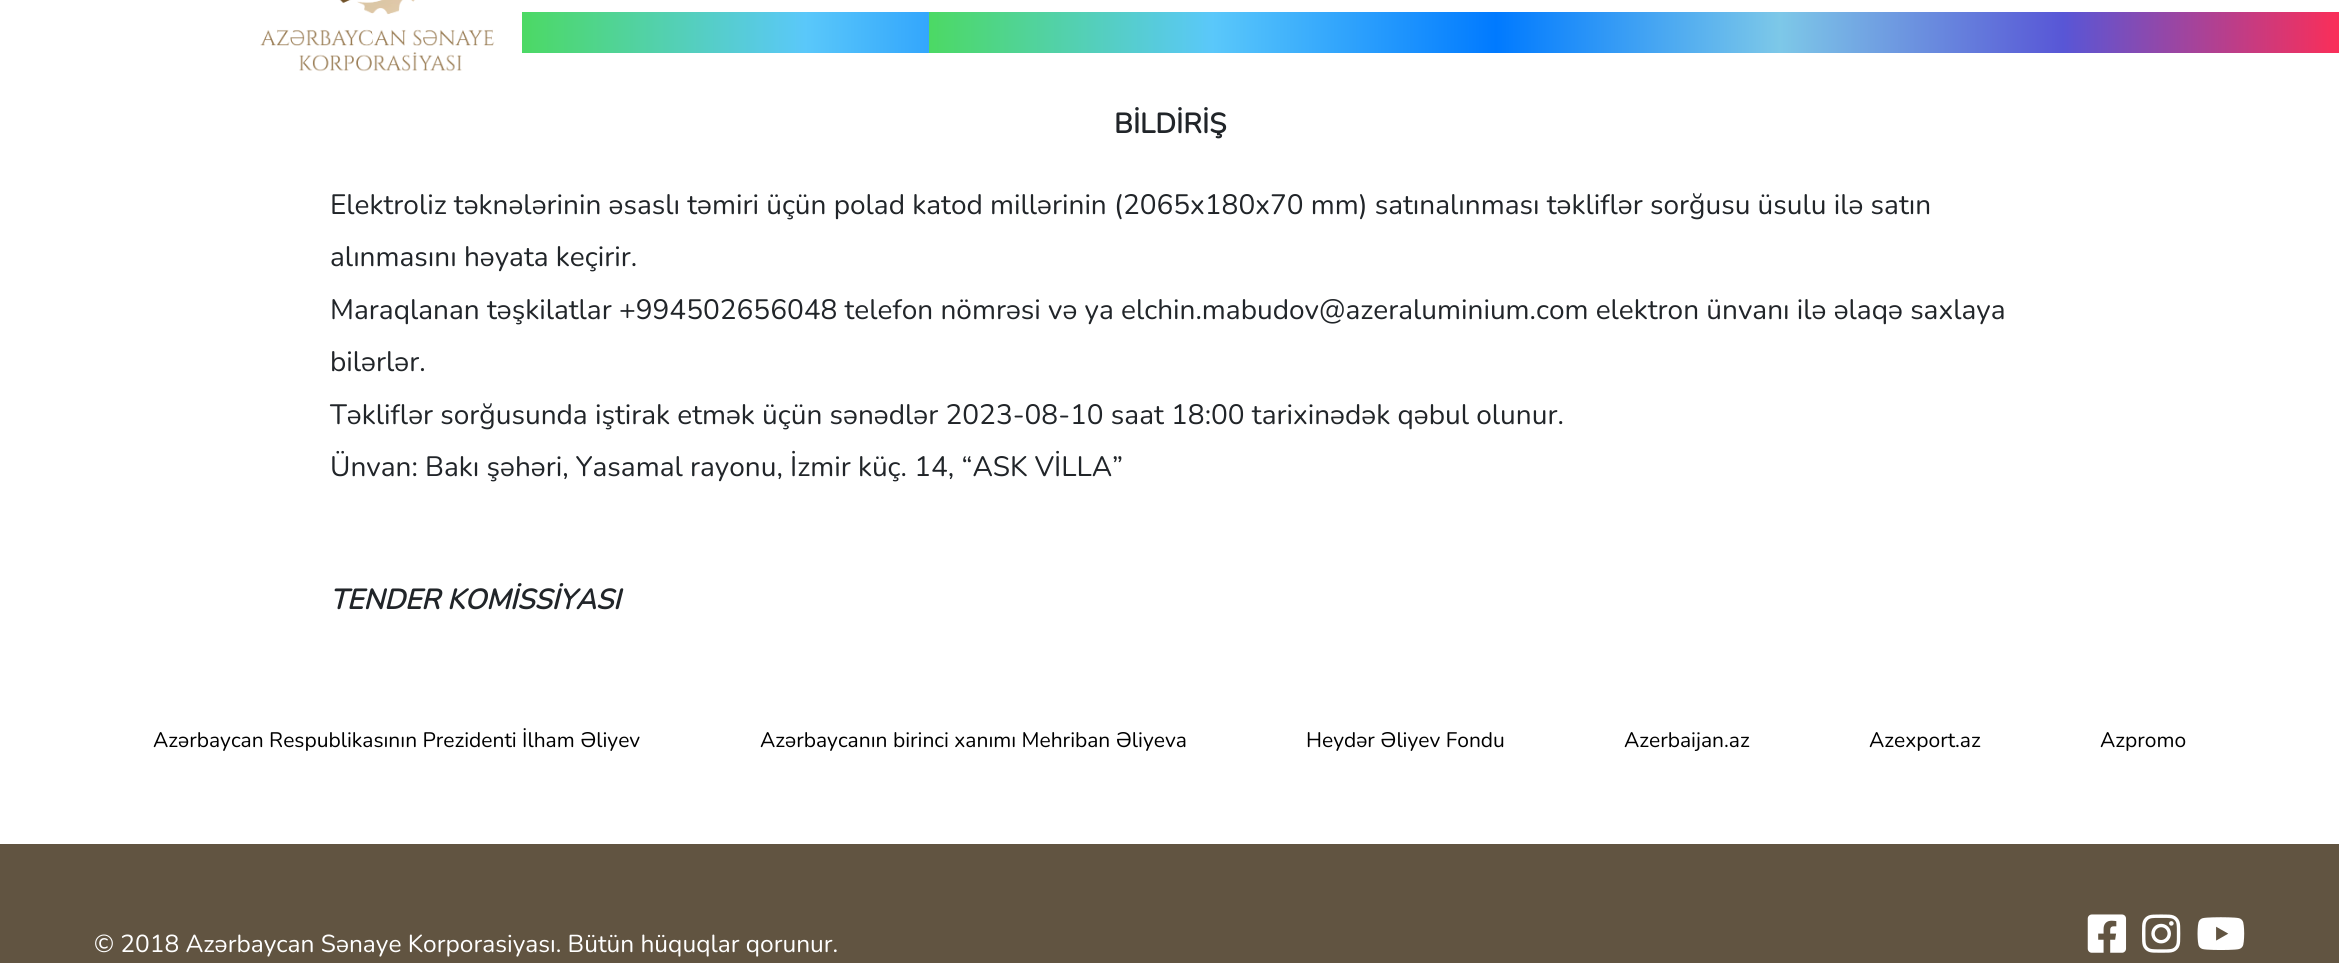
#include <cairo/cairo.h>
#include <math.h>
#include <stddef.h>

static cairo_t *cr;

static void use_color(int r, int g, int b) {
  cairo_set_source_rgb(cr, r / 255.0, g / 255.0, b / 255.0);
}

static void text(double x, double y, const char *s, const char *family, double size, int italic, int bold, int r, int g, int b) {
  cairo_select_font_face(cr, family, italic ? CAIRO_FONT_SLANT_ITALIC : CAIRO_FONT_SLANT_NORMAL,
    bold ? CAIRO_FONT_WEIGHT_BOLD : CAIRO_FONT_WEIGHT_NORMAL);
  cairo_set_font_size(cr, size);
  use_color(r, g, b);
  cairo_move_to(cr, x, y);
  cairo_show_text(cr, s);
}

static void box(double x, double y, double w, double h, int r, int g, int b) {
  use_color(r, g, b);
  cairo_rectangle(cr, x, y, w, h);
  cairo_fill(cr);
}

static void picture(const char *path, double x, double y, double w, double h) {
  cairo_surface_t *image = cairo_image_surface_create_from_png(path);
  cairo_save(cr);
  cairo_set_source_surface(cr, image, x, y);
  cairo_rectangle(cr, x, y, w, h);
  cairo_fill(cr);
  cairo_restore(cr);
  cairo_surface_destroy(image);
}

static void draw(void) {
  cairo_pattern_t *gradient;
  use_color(255, 255, 255);
  cairo_paint(cr);
  picture("img_01.png", 260, 0, 235, 72);
  gradient = cairo_pattern_create_linear(522, 32, 1939, 32);
  cairo_pattern_add_color_stop_rgba(gradient, 0, 0.298, 0.851, 0.392, 1);
  cairo_pattern_add_color_stop_rgba(gradient, 0.2, 0.353, 0.784, 0.98, 1);
  cairo_pattern_add_color_stop_rgba(gradient, 0.4, 0, 0.478, 1, 1);
  cairo_pattern_add_color_stop_rgba(gradient, 0.6, 0.49, 0.784, 0.91, 1);
  cairo_pattern_add_color_stop_rgba(gradient, 0.8, 0.345, 0.337, 0.839, 1);
  cairo_pattern_add_color_stop_rgba(gradient, 1, 1, 0.176, 0.333, 1);
  cairo_set_source(cr, gradient);
  cairo_pattern_destroy(gradient);
  cairo_rectangle(cr, 522, 12, 407, 41);
  cairo_fill(cr);
  gradient = cairo_pattern_create_linear(929, 32, 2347, 32);
  cairo_pattern_add_color_stop_rgba(gradient, 0, 0.298, 0.851, 0.392, 1);
  cairo_pattern_add_color_stop_rgba(gradient, 0.2, 0.353, 0.784, 0.98, 1);
  cairo_pattern_add_color_stop_rgba(gradient, 0.4, 0, 0.478, 1, 1);
  cairo_pattern_add_color_stop_rgba(gradient, 0.6, 0.49, 0.784, 0.91, 1);
  cairo_pattern_add_color_stop_rgba(gradient, 0.8, 0.345, 0.337, 0.839, 1);
  cairo_pattern_add_color_stop_rgba(gradient, 1, 1, 0.176, 0.333, 1);
  cairo_set_source(cr, gradient);
  cairo_pattern_destroy(gradient);
  cairo_rectangle(cr, 929, 12, 1410, 41);
  cairo_fill(cr);
  box(0, 844, 2339, 119, 97, 84, 65);
  picture("img_02.png", 2087, 914, 40, 39);
  picture("img_03.png", 2142, 914, 39, 39);
  picture("img_04.png", 2197, 917, 48, 33);
  text(1114, 133, "BİLDİRİŞ", "Nunito", 28, 0, 1, 33, 37, 41);
  text(330, 214, "Elektroliz təknələrinin əsaslı təmiri üçün polad katod millərinin (2065x180x70 mm) satınalınması təkliflər sorğusu üsulu ilə satın", "Nunito ExtraLight", 28, 0, 0, 33, 37, 41);
  text(330, 266, "alınmasını həyata keçirir.", "Nunito ExtraLight", 28, 0, 0, 33, 37, 41);
  text(330, 319, "Maraqlanan təşkilatlar +994502656048 telefon nömrəsi və ya elchin.mabudov@azeraluminium.com elektron ünvanı ilə əlaqə saxlaya", "Nunito ExtraLight", 28, 0, 0, 33, 37, 41);
  text(330, 371, "bilərlər.", "Nunito ExtraLight", 28, 0, 0, 33, 37, 41);
  text(330, 424, "Təkliflər sorğusunda iştirak etmək üçün sənədlər 2023-08-10 saat 18:00 tarixinədək qəbul olunur.", "Nunito ExtraLight", 28, 0, 0, 33, 37, 41);
  text(330, 476, "Ünvan: Bakı şəhəri, Yasamal rayonu, İzmir küç. 14, “ASK VİLLA”", "Nunito ExtraLight", 28, 0, 0, 33, 37, 41);
  text(330, 609, "TENDER KOMİSSİYASI", "Nunito", 28, 1, 1, 33, 37, 41);
  text(153, 747, "Azərbaycan Respublikasının Prezidenti İlham Əliyev", "Nunito ExtraLight", 21, 0, 0, 0, 0, 0);
  text(760, 747, "Azərbaycanın birinci xanımı Mehriban Əliyeva", "Nunito ExtraLight", 21, 0, 0, 0, 0, 0);
  text(1306, 747, "Heydər Əliyev Fondu", "Nunito ExtraLight", 21, 0, 0, 0, 0, 0);
  text(1624, 747, "Azerbaijan.az", "Nunito ExtraLight", 21, 0, 0, 0, 0, 0);
  text(1869, 747, "Azexport.az", "Nunito ExtraLight", 21, 0, 0, 0, 0, 0);
  text(2100, 747, "Azpromo", "Nunito ExtraLight", 21, 0, 0, 0, 0, 0);
  text(94, 952, "© 2018 Azərbaycan Sənaye Korporasiyası. Bütün hüquqlar qorunur.", "Nunito ExtraLight", 24.5, 0, 0, 255, 255, 255);
}

int main(void) {
  cairo_surface_t *surface = cairo_image_surface_create(CAIRO_FORMAT_RGB24, 2339, 963);
  cr = cairo_create(surface);
  cairo_font_options_t *options = cairo_font_options_create();
  cairo_font_options_set_hint_metrics(options, CAIRO_HINT_METRICS_OFF);
  cairo_font_options_set_hint_style(options, CAIRO_HINT_STYLE_NONE);
  cairo_set_font_options(cr, options);
  cairo_set_miter_limit(cr, 4);
  draw();
  cairo_surface_write_to_png(surface, "out.png");
  cairo_font_options_destroy(options);
  cairo_destroy(cr);
  cairo_surface_destroy(surface);
  return 0;
}
